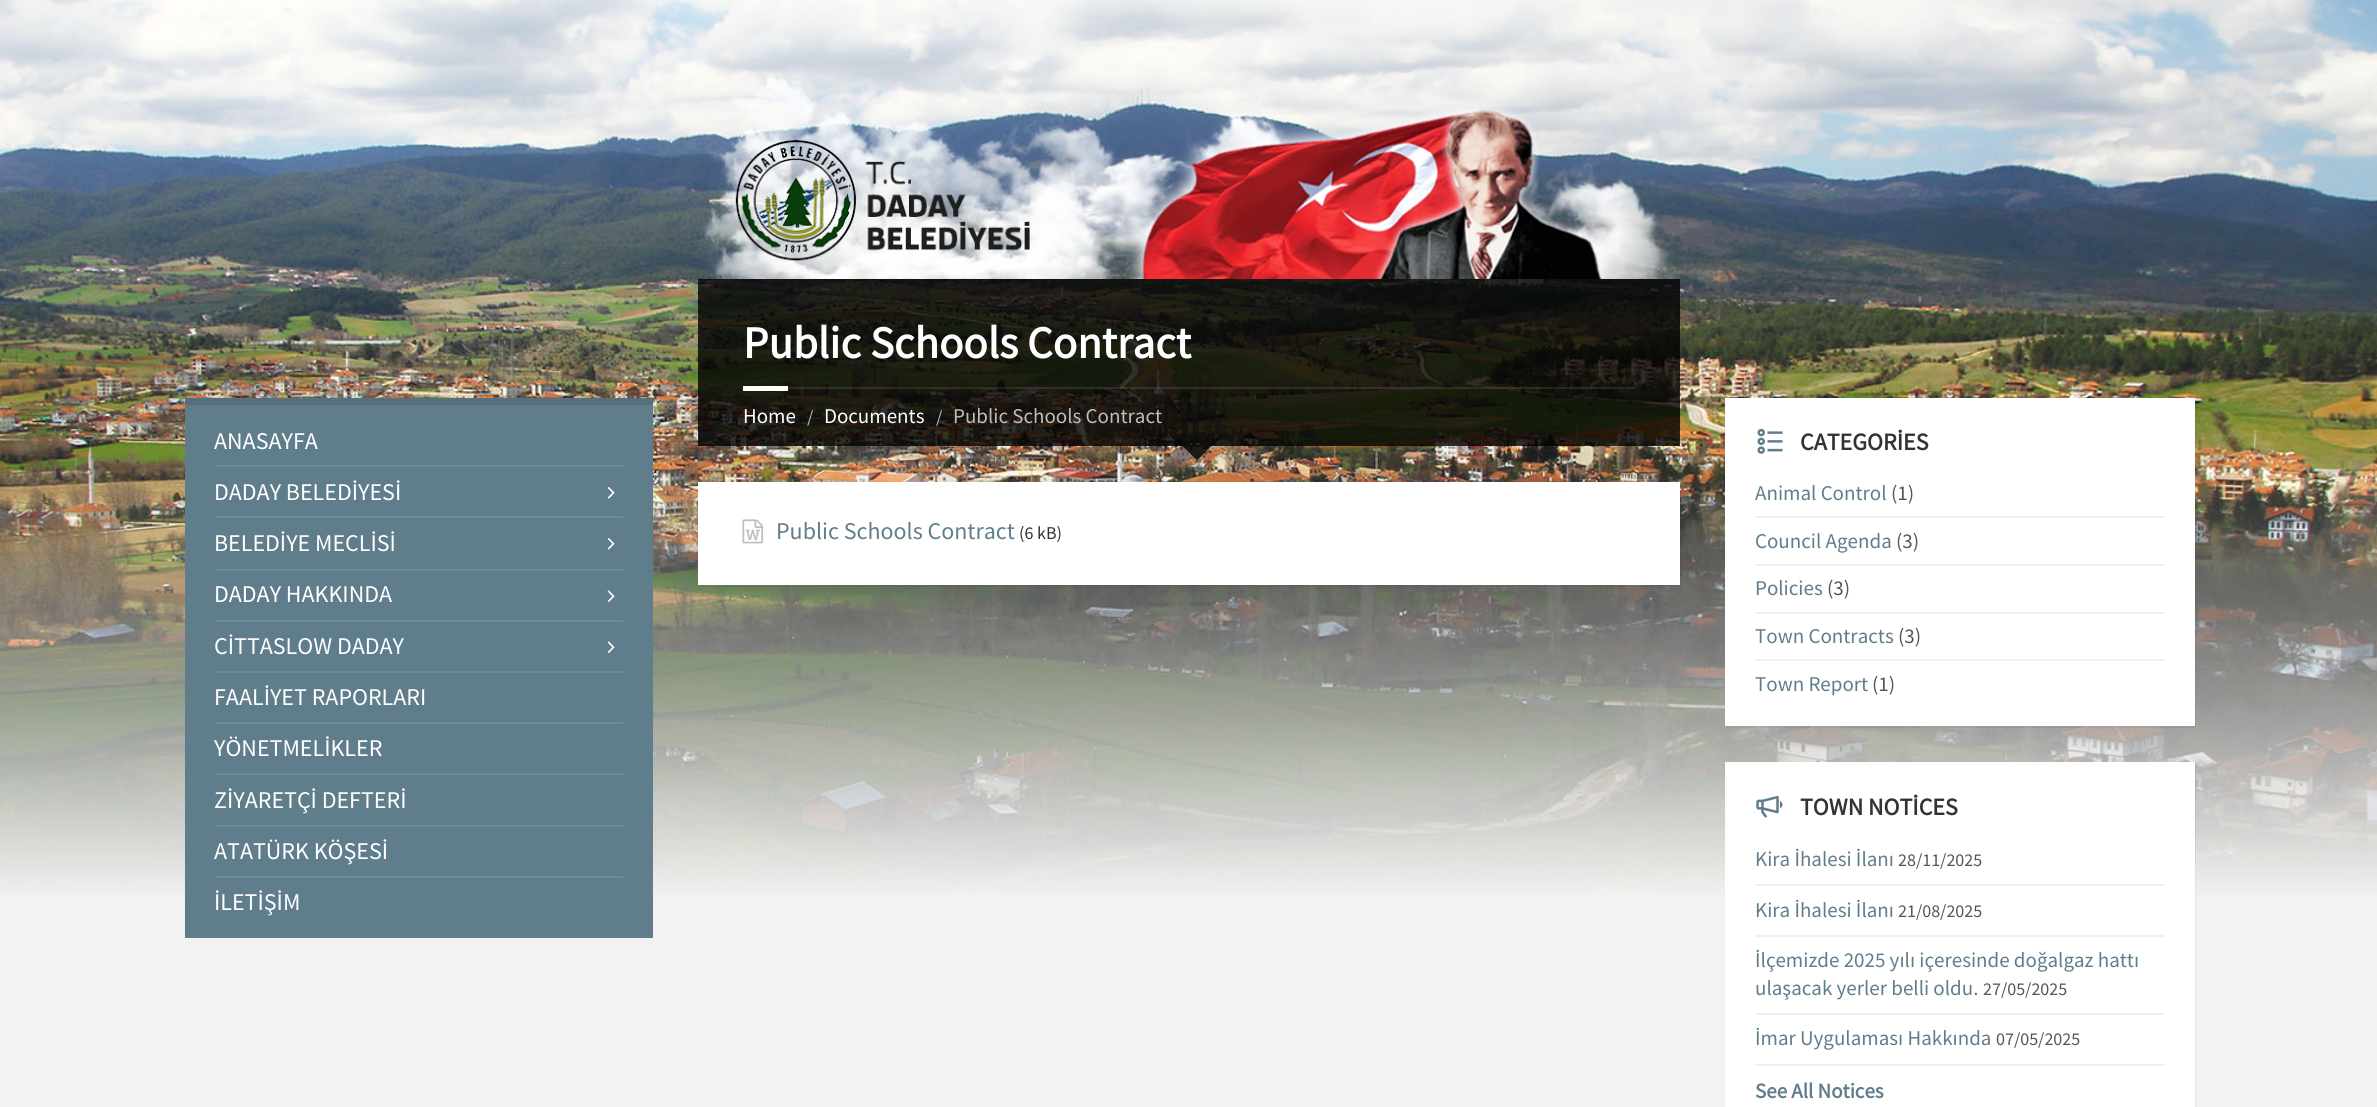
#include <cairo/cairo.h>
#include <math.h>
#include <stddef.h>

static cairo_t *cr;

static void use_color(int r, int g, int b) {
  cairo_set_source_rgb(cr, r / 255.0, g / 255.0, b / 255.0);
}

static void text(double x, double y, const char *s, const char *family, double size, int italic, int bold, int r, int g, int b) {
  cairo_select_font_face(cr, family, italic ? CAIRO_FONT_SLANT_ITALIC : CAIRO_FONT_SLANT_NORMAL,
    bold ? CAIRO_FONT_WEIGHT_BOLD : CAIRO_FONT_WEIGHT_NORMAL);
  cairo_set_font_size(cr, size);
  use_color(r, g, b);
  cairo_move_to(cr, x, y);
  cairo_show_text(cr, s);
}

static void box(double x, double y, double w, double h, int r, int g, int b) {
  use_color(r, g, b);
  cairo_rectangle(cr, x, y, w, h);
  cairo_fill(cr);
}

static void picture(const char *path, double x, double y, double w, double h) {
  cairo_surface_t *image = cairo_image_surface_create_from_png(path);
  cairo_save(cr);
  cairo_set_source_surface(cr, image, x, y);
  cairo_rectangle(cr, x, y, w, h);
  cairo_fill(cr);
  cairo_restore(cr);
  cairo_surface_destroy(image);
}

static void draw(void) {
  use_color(242, 242, 242);
  cairo_paint(cr);
  picture("img_01.png", 0, 0, 2377, 900);
  box(185, 405, 468, 533, 96, 125, 139);
  box(185, 398, 468, 7, 86, 113, 125);
  box(215, 465, 408, 2, 112, 138, 151);
  picture("img_02.png", 607, 487, 8, 12);
  box(215, 516, 408, 2, 112, 138, 151);
  picture("img_02.png", 607, 538, 8, 12);
  box(215, 569, 408, 2, 112, 138, 151);
  picture("img_03.png", 607, 590, 8, 12);
  box(215, 620, 408, 2, 112, 138, 151);
  picture("img_03.png", 607, 641, 8, 12);
  box(215, 671, 408, 2, 112, 138, 151);
  box(215, 722, 408, 2, 112, 138, 151);
  box(215, 773, 408, 2, 112, 138, 151);
  box(215, 825, 408, 2, 112, 138, 151);
  box(215, 876, 408, 2, 112, 138, 151);
  picture("img_04.png", 701, 65, 979, 214);
  cairo_set_source_rgba(cr, 0, 0, 0, 0.8);
  cairo_rectangle(cr, 698, 279, 982, 167);
  cairo_fill(cr);
  cairo_set_source_rgba(cr, 1, 1, 1, 0.1);
  cairo_rectangle(cr, 788, 387, 847, 2);
  cairo_fill(cr);
  box(743, 386, 45, 5, 255, 255, 255);
  cairo_set_source_rgba(cr, 0, 0, 0, 0.8);
  cairo_new_path(cr);
  cairo_move_to(cr, 1182, 445.5);
  cairo_line_to(cr, 1212, 445.5);
  cairo_line_to(cr, 1197, 460.5);
  cairo_close_path(cr);
  cairo_fill(cr);
  cairo_set_source_rgba(cr, 0, 0, 0, 0.05);
  cairo_new_path(cr);
  cairo_move_to(cr, 699, 585);
  cairo_line_to(cr, 699, 587);
  cairo_line_to(cr, 1682, 587);
  cairo_line_to(cr, 1682, 483);
  cairo_line_to(cr, 1680, 483);
  cairo_line_to(cr, 1680, 585);
  cairo_close_path(cr);
  cairo_fill(cr);
  box(698, 482, 982, 103, 255, 255, 255);
  picture("img_05.png", 742, 519, 22, 25);
  cairo_set_source_rgba(cr, 0, 0, 0, 0.05);
  cairo_new_path(cr);
  cairo_move_to(cr, 1727, 726);
  cairo_line_to(cr, 1727, 728);
  cairo_line_to(cr, 2196, 728);
  cairo_line_to(cr, 2196, 399);
  cairo_line_to(cr, 2194, 399);
  cairo_line_to(cr, 2194, 726);
  cairo_close_path(cr);
  cairo_fill(cr);
  box(1725, 398, 470, 328, 255, 255, 255);
  picture("img_06.png", 1757, 428, 26, 26);
  box(1755, 516, 410, 2, 240, 240, 240);
  box(1755, 564, 410, 2, 240, 240, 240);
  box(1755, 612, 410, 2, 240, 240, 240);
  box(1755, 659, 410, 2, 240, 240, 240);
  cairo_set_source_rgba(cr, 0, 0, 0, 0.05);
  cairo_new_path(cr);
  cairo_move_to(cr, 1727, 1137);
  cairo_line_to(cr, 1727, 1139);
  cairo_line_to(cr, 2196, 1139);
  cairo_line_to(cr, 2196, 764);
  cairo_line_to(cr, 2194, 764);
  cairo_line_to(cr, 2194, 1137);
  cairo_close_path(cr);
  cairo_fill(cr);
  box(1725, 762, 470, 345, 255, 255, 255);
  picture("img_07.png", 1756, 795, 27, 23);
  box(1755, 884, 410, 2, 240, 240, 240);
  box(1755, 935, 410, 2, 240, 240, 240);
  box(1755, 1013, 410, 2, 240, 240, 240);
  box(1755, 1064, 410, 2, 240, 240, 240);
  text(214, 449, "ANASAYFA", "Source Sans Pro", 24, 0, 0, 255, 255, 255);
  text(214, 500, "DADAY BELEDİYESİ", "Source Sans Pro", 24, 0, 0, 255, 255, 255);
  text(214, 551, "BELEDİYE MECLİSİ", "Source Sans Pro", 24, 0, 0, 255, 255, 255);
  text(214, 602, "DADAY HAKKINDA", "Source Sans Pro", 24, 0, 0, 255, 255, 255);
  text(214, 654, "CİTTASLOW DADAY", "Source Sans Pro", 24, 0, 0, 255, 255, 255);
  text(214, 705, "FAALİYET RAPORLARI", "Source Sans Pro", 24, 0, 0, 255, 255, 255);
  text(214, 756, "YÖNETMELİKLER", "Source Sans Pro", 24, 0, 0, 255, 255, 255);
  text(214, 808, "ZİYARETÇİ DEFTERİ", "Source Sans Pro", 24, 0, 0, 255, 255, 255);
  text(214, 859, "ATATÜRK KÖŞESİ", "Source Sans Pro", 24, 0, 0, 255, 255, 255);
  text(214, 910, "İLETİŞİM", "Source Sans Pro", 24, 0, 0, 255, 255, 255);
  text(743, 358, "Public Schools Contract", "Source Sans Pro", 45, 0, 1, 255, 255, 255);
  text(743, 423, "Home", "Source Sans Pro", 21, 0, 0, 255, 255, 255);
  text(807, 423, "/", "Source Sans Pro", 18, 0, 0, 190, 190, 190);
  text(824, 423, "Documents", "Source Sans Pro", 21, 0, 0, 255, 255, 255);
  text(936, 423, "/", "Source Sans Pro", 18, 0, 0, 190, 190, 190);
  text(953, 423, "Public Schools Contract", "Source Sans Pro", 21, 0, 0, 190, 190, 190);
  text(776, 539, "Public Schools Contract", "Source Sans Pro", 24, 0, 0, 96, 125, 139);
  text(1019, 539, "(6 kB)", "Source Sans Pro", 18, 0, 0, 51, 51, 51);
  text(1800, 450, "CATEGORİES", "Source Sans Pro", 24, 0, 1, 51, 51, 51);
  text(1755, 500, "Animal Control", "Source Sans Pro", 21, 0, 0, 96, 125, 139);
  text(1891, 500, "(1)", "Source Sans Pro", 21, 0, 0, 86, 86, 86);
  text(1755, 548, "Council Agenda", "Source Sans Pro", 21, 0, 0, 96, 125, 139);
  text(1896, 548, "(3)", "Source Sans Pro", 21, 0, 0, 86, 86, 86);
  text(1755, 595, "Policies", "Source Sans Pro", 21, 0, 0, 96, 125, 139);
  text(1827, 595, "(3)", "Source Sans Pro", 21, 0, 0, 86, 86, 86);
  text(1755, 643, "Town Contracts", "Source Sans Pro", 21, 0, 0, 96, 125, 139);
  text(1898, 643, "(3)", "Source Sans Pro", 21, 0, 0, 86, 86, 86);
  text(1755, 691, "Town Report", "Source Sans Pro", 21, 0, 0, 96, 125, 139);
  text(1872, 691, "(1)", "Source Sans Pro", 21, 0, 0, 86, 86, 86);
  text(1800, 815, "TOWN NOTİCES", "Source Sans Pro", 24, 0, 1, 51, 51, 51);
  text(1755, 866, "Kira İhalesi İlanı", "Source Sans Pro", 21, 0, 0, 96, 125, 139);
  text(1898, 866, "28/11/2025", "Source Sans Pro", 18, 0, 0, 86, 86, 86);
  text(1755, 917, "Kira İhalesi İlanı", "Source Sans Pro", 21, 0, 0, 96, 125, 139);
  text(1898, 917, "21/08/2025", "Source Sans Pro", 18, 0, 0, 86, 86, 86);
  text(1755, 967, "İlçemizde 2025 yılı içeresinde doğalgaz hattı", "Source Sans Pro", 21, 0, 0, 96, 125, 139);
  text(1755, 995, "ulaşacak yerler belli oldu.", "Source Sans Pro", 21, 0, 0, 96, 125, 139);
  text(1983, 995, "27/05/2025", "Source Sans Pro", 18, 0, 0, 86, 86, 86);
  text(1755, 1045, "İmar Uygulaması Hakkında", "Source Sans Pro", 21, 0, 0, 96, 125, 139);
  text(1996, 1045, "07/05/2025", "Source Sans Pro", 18, 0, 0, 86, 86, 86);
  text(1755, 1098, "See All Notices", "Source Sans Pro", 21, 0, 1, 96, 125, 139);
}

int main(void) {
  cairo_surface_t *surface = cairo_image_surface_create(CAIRO_FORMAT_RGB24, 2377, 1107);
  cr = cairo_create(surface);
  cairo_font_options_t *options = cairo_font_options_create();
  cairo_font_options_set_hint_metrics(options, CAIRO_HINT_METRICS_OFF);
  cairo_font_options_set_hint_style(options, CAIRO_HINT_STYLE_NONE);
  cairo_set_font_options(cr, options);
  cairo_set_miter_limit(cr, 4);
  draw();
  cairo_surface_write_to_png(surface, "out.png");
  cairo_font_options_destroy(options);
  cairo_destroy(cr);
  cairo_surface_destroy(surface);
  return 0;
}
